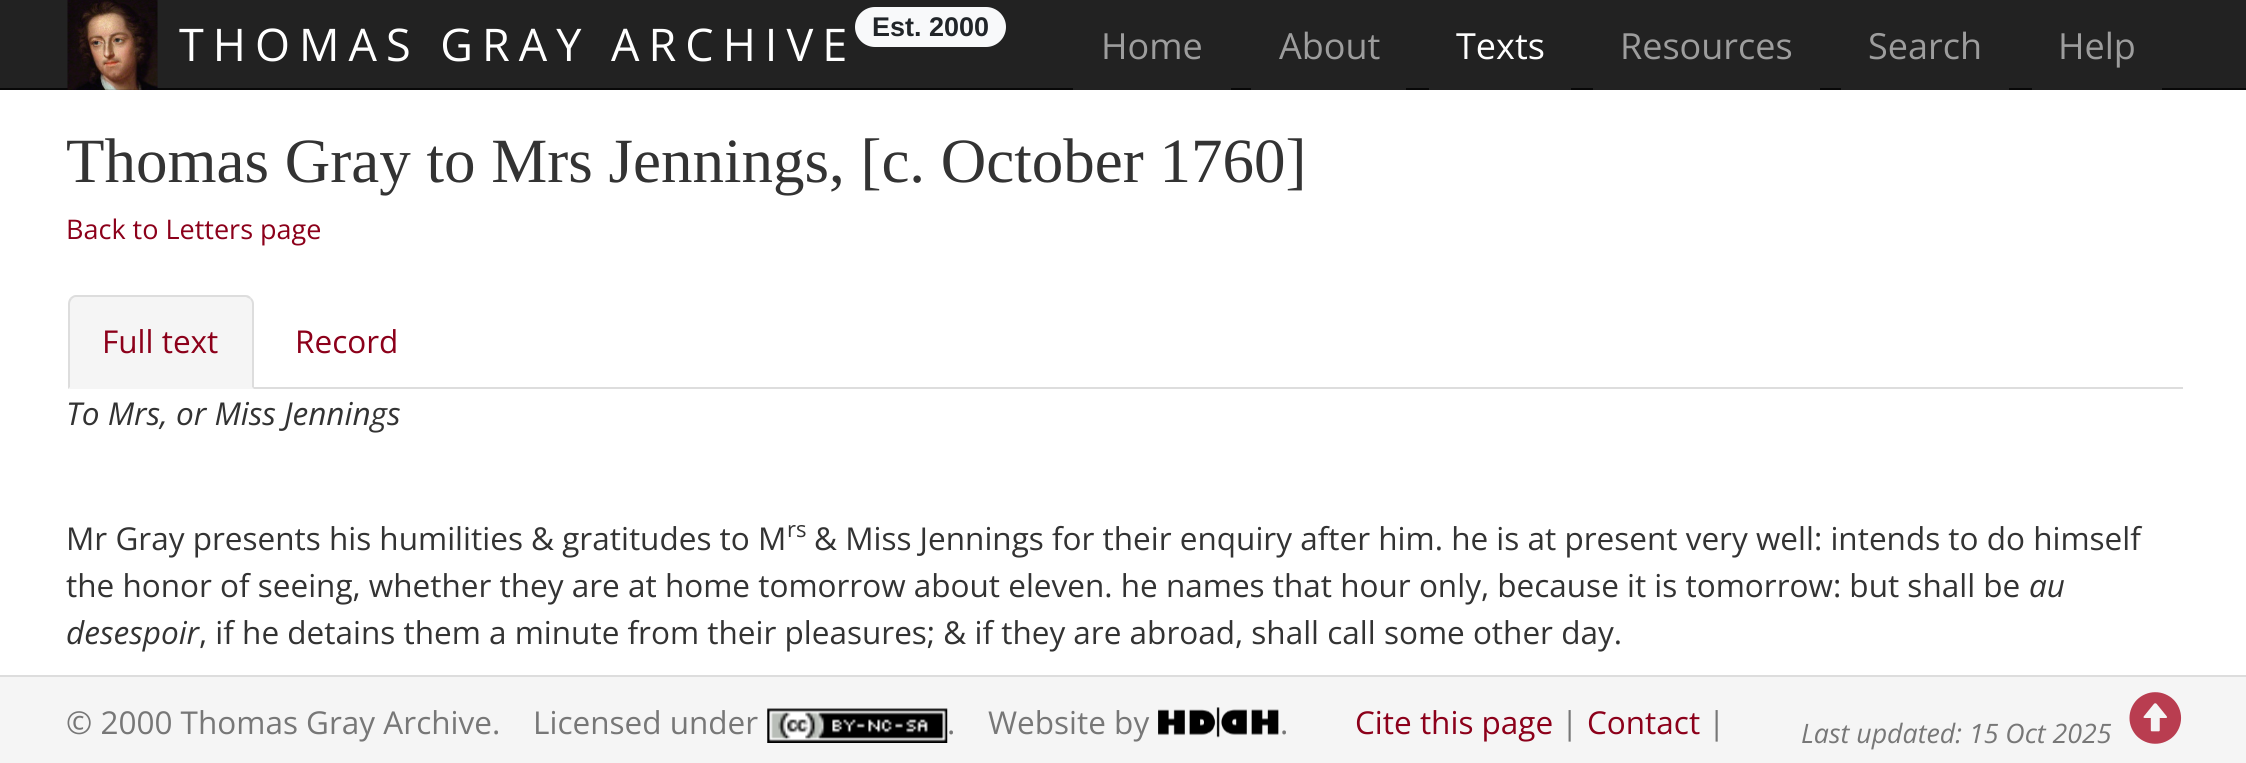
#include <cairo/cairo.h>
#include <math.h>
#include <stddef.h>

static cairo_t *cr;

static void use_color(int r, int g, int b) {
  cairo_set_source_rgb(cr, r / 255.0, g / 255.0, b / 255.0);
}

static void text(double x, double y, const char *s, const char *family, double size, int italic, int bold, int r, int g, int b) {
  cairo_select_font_face(cr, family, italic ? CAIRO_FONT_SLANT_ITALIC : CAIRO_FONT_SLANT_NORMAL,
    bold ? CAIRO_FONT_WEIGHT_BOLD : CAIRO_FONT_WEIGHT_NORMAL);
  cairo_set_font_size(cr, size);
  use_color(r, g, b);
  cairo_move_to(cr, x, y);
  cairo_show_text(cr, s);
}

static void spaced_text(double x, double y, const char *s, double letter, double word) {
  cairo_move_to(cr, x, y);
  while (*s) {
    char ch[5] = {0};
    int n = 0;
    do ch[n++] = *s++; while ((*s & 0xC0) == 0x80);
    cairo_show_text(cr, ch);
    cairo_rel_move_to(cr, letter + word * (*ch == ' '), 0);
  }
}

static void box(double x, double y, double w, double h, int r, int g, int b) {
  use_color(r, g, b);
  cairo_rectangle(cr, x, y, w, h);
  cairo_fill(cr);
}

static void round_rect(double x, double y, double w, double h, double r) {
  cairo_new_sub_path(cr);
  cairo_arc(cr, x + w - r, y + h - r, r, 0, M_PI / 2);
  cairo_arc(cr, x + r, y + h - r, r, M_PI / 2, M_PI);
  cairo_arc(cr, x + r, y + r, r, M_PI, 1.5 * M_PI);
  cairo_arc(cr, x + w - r, y + r, r, 1.5 * M_PI, 2 * M_PI);
  cairo_close_path(cr);
}

static void picture(const char *path, double x, double y, double w, double h) {
  cairo_surface_t *image = cairo_image_surface_create_from_png(path);
  cairo_save(cr);
  cairo_set_source_surface(cr, image, x, y);
  cairo_rectangle(cr, x, y, w, h);
  cairo_fill(cr);
  cairo_restore(cr);
  cairo_surface_destroy(image);
}

static void draw(void) {
  use_color(255, 255, 255);
  cairo_paint(cr);
  box(0, 0, 2246, 88, 34, 34, 34);
  box(0, 88, 2246, 2, 8, 8, 8);
  picture("img_01.png", 67, 0, 91, 90);
  use_color(248, 249, 250);
  round_rect(855, 7, 151, 40, 20);
  cairo_fill(cr);
  box(1073, 88, 158, 2, 34, 34, 34);
  box(1251, 88, 155, 2, 34, 34, 34);
  box(1429, 88, 142, 2, 34, 34, 34);
  box(1593, 88, 227, 2, 34, 34, 34);
  box(1841, 88, 168, 2, 34, 34, 34);
  box(2032, 88, 130, 2, 34, 34, 34);
  box(254, 387, 1929, 2, 221, 221, 221);
  use_color(245, 245, 245);
  cairo_new_path(cr);
  cairo_move_to(cr, 77, 295);
  cairo_line_to(cr, 245, 295);
  cairo_curve_to(cr, 250, 295, 254, 299, 254, 304);
  cairo_line_to(cr, 254, 389);
  cairo_line_to(cr, 68, 389);
  cairo_line_to(cr, 68, 304);
  cairo_curve_to(cr, 68, 299, 72, 295, 77, 295);
  cairo_close_path(cr);
  cairo_fill(cr);
  use_color(221, 221, 221);
  cairo_new_path(cr);
  cairo_move_to(cr, 76, 295);
  cairo_curve_to(cr, 74, 295, 72, 296, 70, 298);
  cairo_line_to(cr, 72, 299);
  cairo_curve_to(cr, 73, 298, 74, 297, 76, 297);
  cairo_line_to(cr, 246, 297);
  cairo_line_to(cr, 250, 299);
  cairo_line_to(cr, 251, 298);
  cairo_curve_to(cr, 250, 296, 248, 295, 245, 295);
  cairo_close_path(cr);
  cairo_fill(cr);
  cairo_new_path(cr);
  cairo_move_to(cr, 254, 389);
  cairo_line_to(cr, 254, 304);
  cairo_curve_to(cr, 254, 302, 253, 299, 251, 298);
  cairo_line_to(cr, 250, 299);
  cairo_curve_to(cr, 251, 300, 252, 302, 252, 304);
  cairo_line_to(cr, 252, 387);
  cairo_close_path(cr);
  cairo_fill(cr);
  cairo_new_path(cr);
  cairo_move_to(cr, 70, 298);
  cairo_curve_to(cr, 69, 299, 68, 302, 68, 304);
  cairo_line_to(cr, 68, 389);
  cairo_line_to(cr, 70, 387);
  cairo_line_to(cr, 70, 304);
  cairo_curve_to(cr, 70, 302, 71, 300, 72, 299);
  cairo_close_path(cr);
  cairo_fill(cr);
  box(0, 677, 2246, 86, 245, 245, 245);
  box(0, 675, 2246, 2, 221, 221, 221);
  picture("img_02.png", 767, 708, 181, 35);
  picture("img_03.png", 1158, 707, 121, 31);
  picture("img_04.png", 2129, 692, 53, 52);
  cairo_select_font_face(cr, "Open Sans", CAIRO_FONT_SLANT_NORMAL, CAIRO_FONT_WEIGHT_NORMAL);
  cairo_set_font_size(cr, 45);
  use_color(255, 255, 255);
  spaced_text(179, 61, "THOMAS GRAY ARCHIVE", 9, 0);
  text(872, 36, "Est. 2000", "Liberation Sans", 27, 0, 1, 33, 37, 41);
  text(1101, 59, "Home", "Open Sans", 36, 0, 0, 157, 157, 157);
  text(1279, 59, "About", "Open Sans", 36, 0, 0, 157, 157, 157);
  text(1456, 59, "Texts", "Open Sans", 36, 0, 0, 255, 255, 255);
  text(1620, 59, "Resources", "Open Sans", 36, 0, 0, 157, 157, 157);
  text(1868, 59, "Search", "Open Sans", 36, 0, 0, 157, 157, 157);
  text(2058, 59, "Help", "Open Sans", 36, 0, 0, 157, 157, 157);
  text(66, 182, "Thomas Gray to Mrs Jennings, [c. October 1760]", "Liberation Serif", 63, 0, 0, 51, 51, 51);
  text(66, 239, "Back to Letters page", "Open Sans", 27, 0, 0, 140, 0, 26);
  text(102, 353, "Full text", "Open Sans", 31.5, 0, 0, 140, 0, 26);
  text(295, 353, "Record", "Open Sans", 31.5, 0, 0, 140, 0, 26);
  text(66, 425, "To Mrs, or Miss Jennings", "Open Sans", 31.5, 1, 0, 51, 51, 51);
  text(66, 550, "Mr Gray presents his humilities & gratitudes to M", "Open Sans", 31.5, 0, 0, 51, 51, 51);
  text(787, 537, "rs", "Open Sans", 22, 0, 0, 51, 51, 51);
  text(814, 550, "& Miss Jennings for their enquiry after him. he is at present very well: intends to do himself", "Open Sans", 31.5, 0, 0, 51, 51, 51);
  text(66, 597, "the honor of seeing, whether they are at home tomorrow about eleven. he names that hour only, because it is tomorrow: but shall be", "Open Sans", 31.5, 0, 0, 51, 51, 51);
  text(2029, 597, "au", "Open Sans", 31.5, 1, 0, 51, 51, 51);
  text(66, 644, "desespoir", "Open Sans", 31.5, 1, 0, 51, 51, 51);
  text(199, 644, ", if he detains them a minute from their pleasures; & if they are abroad, shall call some other day.", "Open Sans", 31.5, 0, 0, 51, 51, 51);
  text(66, 734, "© 2000 Thomas Gray Archive.", "Open Sans", 31.5, 0, 0, 119, 119, 119);
  text(533, 734, "Licensed under", "Open Sans", 31.5, 0, 0, 119, 119, 119);
  text(947, 734, ".", "Open Sans", 31.5, 0, 0, 119, 119, 119);
  text(988, 734, "Website by", "Open Sans", 31.5, 0, 0, 119, 119, 119);
  text(1280, 734, ".", "Open Sans", 31.5, 0, 0, 119, 119, 119);
  text(1355, 734, "Cite this page", "Open Sans", 31.5, 0, 0, 140, 0, 26);
  text(1561, 734, "|", "Open Sans", 31.5, 0, 0, 119, 119, 119);
  text(1587, 734, "Contact", "Open Sans", 31.5, 0, 0, 140, 0, 26);
  text(1708, 734, "|", "Open Sans", 31.5, 0, 0, 119, 119, 119);
  text(1801, 743, "Last updated: 15 Oct 2025", "Open Sans", 26.75, 1, 0, 119, 119, 119);
}

int main(void) {
  cairo_surface_t *surface = cairo_image_surface_create(CAIRO_FORMAT_RGB24, 2246, 763);
  cr = cairo_create(surface);
  cairo_font_options_t *options = cairo_font_options_create();
  cairo_font_options_set_hint_metrics(options, CAIRO_HINT_METRICS_OFF);
  cairo_font_options_set_hint_style(options, CAIRO_HINT_STYLE_NONE);
  cairo_set_font_options(cr, options);
  cairo_set_miter_limit(cr, 4);
  draw();
  cairo_surface_write_to_png(surface, "out.png");
  cairo_font_options_destroy(options);
  cairo_destroy(cr);
  cairo_surface_destroy(surface);
  return 0;
}
